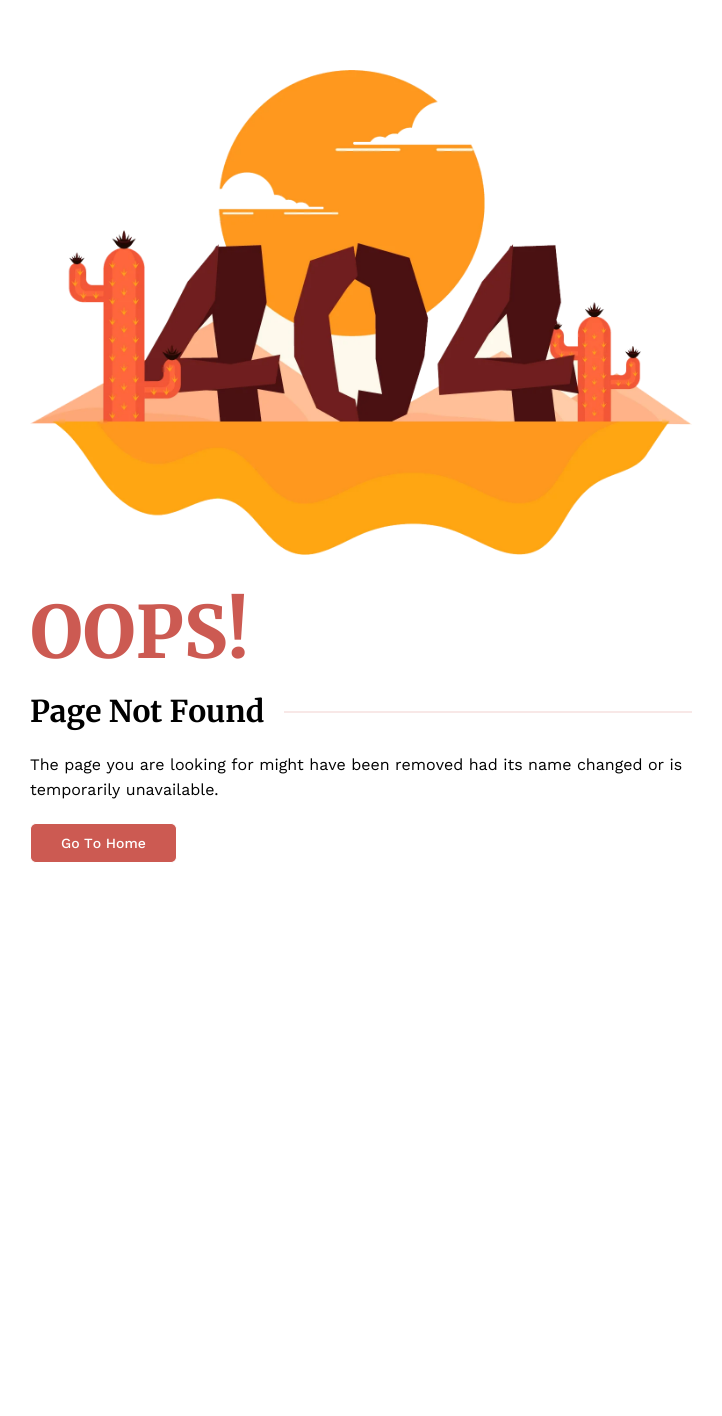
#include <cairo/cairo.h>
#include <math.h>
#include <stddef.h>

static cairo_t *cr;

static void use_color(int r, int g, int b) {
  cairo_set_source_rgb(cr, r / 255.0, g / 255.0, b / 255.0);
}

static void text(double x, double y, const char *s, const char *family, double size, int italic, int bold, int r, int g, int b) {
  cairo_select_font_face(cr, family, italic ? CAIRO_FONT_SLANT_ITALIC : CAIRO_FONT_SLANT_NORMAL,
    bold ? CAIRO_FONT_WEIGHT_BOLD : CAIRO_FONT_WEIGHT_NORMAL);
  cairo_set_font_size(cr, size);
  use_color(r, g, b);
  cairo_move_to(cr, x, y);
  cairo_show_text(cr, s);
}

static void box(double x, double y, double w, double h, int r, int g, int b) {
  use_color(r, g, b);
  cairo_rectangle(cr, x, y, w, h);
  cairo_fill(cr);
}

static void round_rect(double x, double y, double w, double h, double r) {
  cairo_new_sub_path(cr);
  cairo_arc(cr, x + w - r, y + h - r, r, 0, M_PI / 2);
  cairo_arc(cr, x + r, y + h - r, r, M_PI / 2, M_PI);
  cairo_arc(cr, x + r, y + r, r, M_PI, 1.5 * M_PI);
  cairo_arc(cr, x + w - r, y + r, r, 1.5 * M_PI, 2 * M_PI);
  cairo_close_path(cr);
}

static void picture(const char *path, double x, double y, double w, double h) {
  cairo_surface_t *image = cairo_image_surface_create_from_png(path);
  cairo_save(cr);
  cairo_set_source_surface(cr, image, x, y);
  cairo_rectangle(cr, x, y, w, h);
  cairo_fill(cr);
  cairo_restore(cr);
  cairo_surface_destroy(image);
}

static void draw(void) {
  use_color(255, 255, 255);
  cairo_paint(cr);
  picture("img_01.png", 30, 70, 662, 485);
  box(284, 711, 408, 2, 248, 232, 231);
  use_color(204, 90, 82);
  round_rect(30.5, 823.5, 146, 39, 5.5);
  cairo_fill_preserve(cr);
  use_color(255, 255, 255);
  cairo_set_line_width(cr, 1);
  cairo_stroke(cr);
  text(30, 658, "OOPS!", "Merriweather ExtraBold", 72, 0, 0, 204, 90, 82);
  text(30, 722, "Page Not Found", "Merriweather", 30, 0, 1, 0, 0, 0);
  text(30, 770, "The page you are looking for might have been removed had its name changed or is", "Work Sans", 16, 0, 0, 0, 0, 0);
  text(30, 795, "temporarily unavailable.", "Work Sans", 16, 0, 0, 0, 0, 0);
  text(61, 848, "Go To Home", "Work Sans Medium", 14, 0, 0, 255, 255, 255);
}

int main(void) {
  cairo_surface_t *surface = cairo_image_surface_create(CAIRO_FORMAT_RGB24, 722, 1416);
  cr = cairo_create(surface);
  cairo_font_options_t *options = cairo_font_options_create();
  cairo_font_options_set_hint_metrics(options, CAIRO_HINT_METRICS_OFF);
  cairo_font_options_set_hint_style(options, CAIRO_HINT_STYLE_NONE);
  cairo_set_font_options(cr, options);
  cairo_set_miter_limit(cr, 4);
  draw();
  cairo_surface_write_to_png(surface, "out.png");
  cairo_font_options_destroy(options);
  cairo_destroy(cr);
  cairo_surface_destroy(surface);
  return 0;
}
